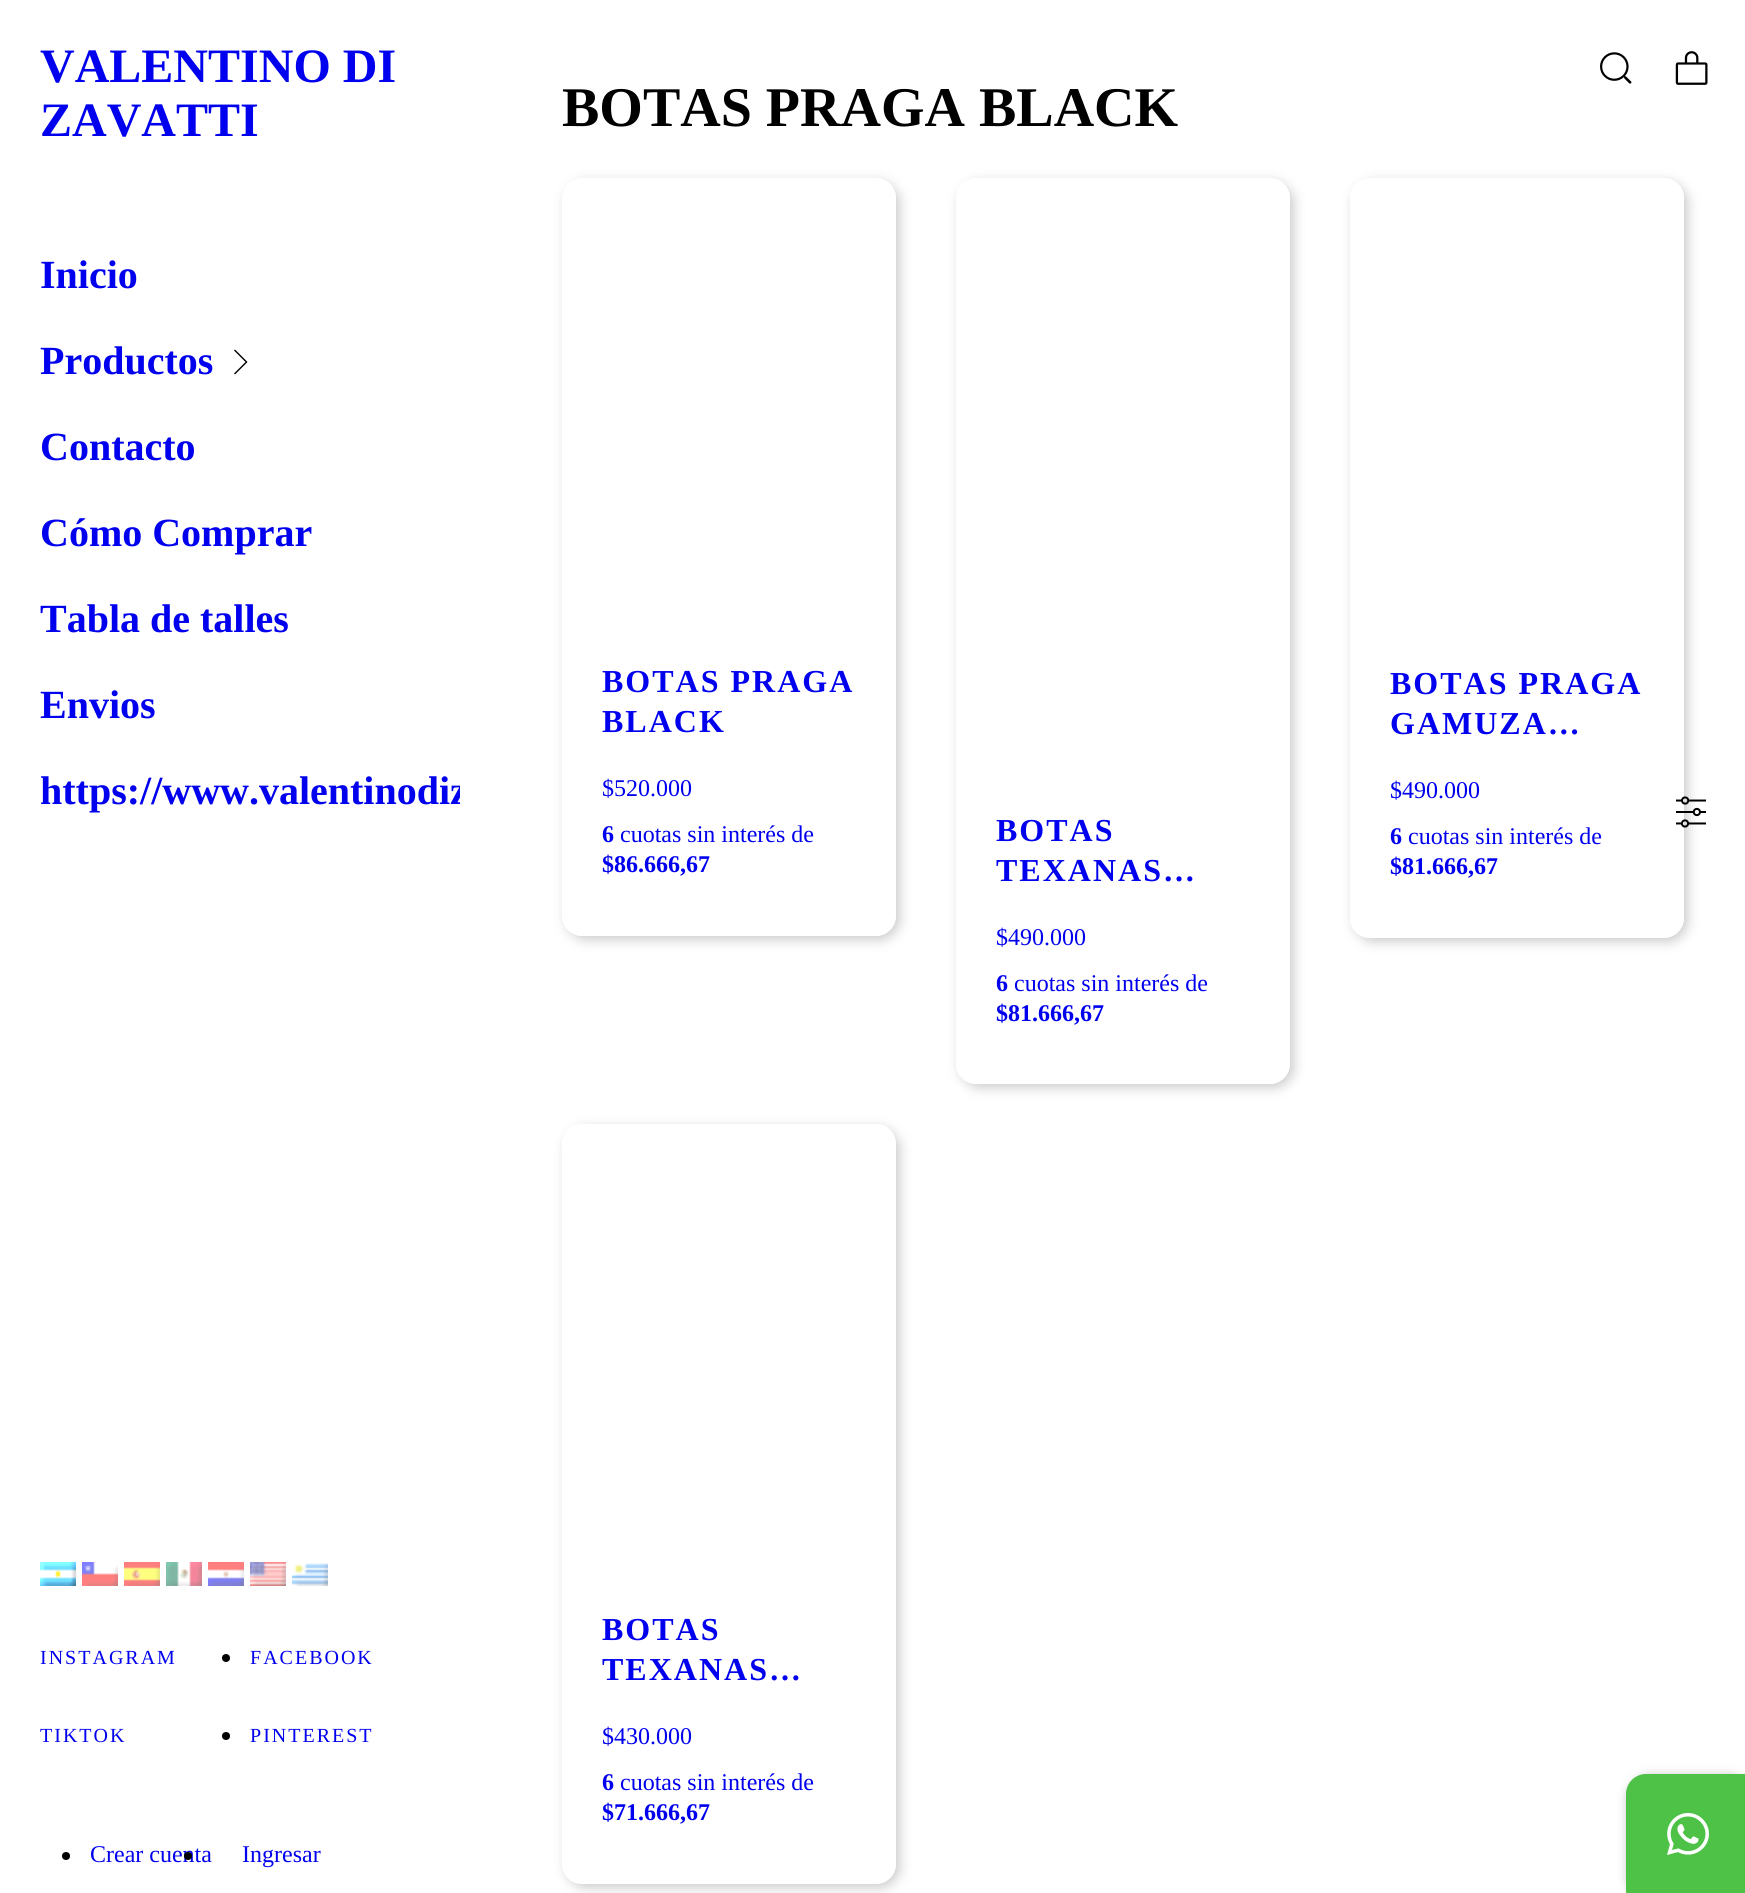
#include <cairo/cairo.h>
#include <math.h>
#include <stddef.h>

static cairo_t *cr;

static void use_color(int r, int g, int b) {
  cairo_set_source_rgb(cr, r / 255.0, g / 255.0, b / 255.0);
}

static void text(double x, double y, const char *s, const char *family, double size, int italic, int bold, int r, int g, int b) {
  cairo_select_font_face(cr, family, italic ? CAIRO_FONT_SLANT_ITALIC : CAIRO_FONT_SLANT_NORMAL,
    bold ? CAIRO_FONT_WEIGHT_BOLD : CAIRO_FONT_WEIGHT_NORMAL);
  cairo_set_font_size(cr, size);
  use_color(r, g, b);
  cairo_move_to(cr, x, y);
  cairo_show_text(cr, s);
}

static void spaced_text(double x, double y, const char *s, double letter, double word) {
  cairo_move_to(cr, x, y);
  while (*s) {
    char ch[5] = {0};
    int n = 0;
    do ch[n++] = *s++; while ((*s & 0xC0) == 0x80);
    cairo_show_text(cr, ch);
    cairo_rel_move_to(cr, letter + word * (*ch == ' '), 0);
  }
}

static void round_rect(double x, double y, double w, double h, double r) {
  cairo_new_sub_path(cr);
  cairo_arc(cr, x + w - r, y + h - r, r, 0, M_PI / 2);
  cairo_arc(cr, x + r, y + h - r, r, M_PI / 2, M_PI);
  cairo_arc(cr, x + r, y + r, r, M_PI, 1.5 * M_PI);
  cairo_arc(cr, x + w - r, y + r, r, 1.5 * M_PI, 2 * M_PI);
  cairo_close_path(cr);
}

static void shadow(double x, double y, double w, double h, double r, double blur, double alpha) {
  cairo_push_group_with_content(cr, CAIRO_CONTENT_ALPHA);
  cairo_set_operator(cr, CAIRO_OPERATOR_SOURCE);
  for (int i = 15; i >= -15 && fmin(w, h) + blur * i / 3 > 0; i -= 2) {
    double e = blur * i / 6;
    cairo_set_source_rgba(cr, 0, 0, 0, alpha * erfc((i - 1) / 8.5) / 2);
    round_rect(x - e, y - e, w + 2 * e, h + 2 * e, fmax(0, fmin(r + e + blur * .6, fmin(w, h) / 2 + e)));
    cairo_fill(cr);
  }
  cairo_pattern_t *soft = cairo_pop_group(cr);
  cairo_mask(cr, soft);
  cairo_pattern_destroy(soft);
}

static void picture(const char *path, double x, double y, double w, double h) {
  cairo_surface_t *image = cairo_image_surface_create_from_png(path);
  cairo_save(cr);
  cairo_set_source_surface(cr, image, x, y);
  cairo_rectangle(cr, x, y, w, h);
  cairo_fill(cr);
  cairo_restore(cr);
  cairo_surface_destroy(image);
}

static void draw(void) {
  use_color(255, 255, 255);
  cairo_paint(cr);
  use_color(0, 0, 0);
  cairo_new_path(cr);
  cairo_move_to(cr, 235, 374.5);
  cairo_line_to(cr, 234, 373.5);
  cairo_line_to(cr, 245.5, 362);
  cairo_line_to(cr, 234, 350.5);
  cairo_line_to(cr, 235, 349.5);
  cairo_line_to(cr, 247.5, 362);
  cairo_close_path(cr);
  cairo_fill(cr);
  picture("img_01.png", 40, 1562, 36, 24);
  picture("img_02.png", 82, 1562, 36, 24);
  picture("img_03.png", 124, 1562, 36, 24);
  picture("img_04.png", 166, 1562, 36, 24);
  picture("img_05.png", 208, 1562, 36, 24);
  picture("img_06.png", 250, 1562, 36, 24);
  picture("img_07.png", 292, 1563, 36, 23);
  cairo_arc(cr, 226, 1658, 4, 0, 2 * M_PI);
  cairo_fill(cr);
  cairo_arc(cr, 226, 1736, 4, 0, 2 * M_PI);
  cairo_fill(cr);
  cairo_arc(cr, 66, 1856, 4, 0, 2 * M_PI);
  cairo_fill(cr);
  picture("img_08.png", 1600, 52, 32, 32);
  picture("img_09.png", 1675, 51, 33, 34);
  cairo_save(cr);
  cairo_set_fill_rule(cr, CAIRO_FILL_RULE_EVEN_ODD);
  cairo_new_path(cr);
  cairo_move_to(cr, 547, 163);
  cairo_line_to(cr, 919, 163);
  cairo_line_to(cr, 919, 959);
  cairo_line_to(cr, 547, 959);
  cairo_close_path(cr);
  cairo_move_to(cr, 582, 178);
  cairo_line_to(cr, 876, 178);
  cairo_curve_to(cr, 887, 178, 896, 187, 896, 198);
  cairo_line_to(cr, 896, 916);
  cairo_curve_to(cr, 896, 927, 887, 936, 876, 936);
  cairo_line_to(cr, 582, 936);
  cairo_curve_to(cr, 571, 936, 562, 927, 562, 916);
  cairo_line_to(cr, 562, 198);
  cairo_curve_to(cr, 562, 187, 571, 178, 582, 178);
  cairo_close_path(cr);
  cairo_clip(cr);
  use_color(0, 0, 0);
  shadow(566, 182, 334, 758, 20, 6, 0.2);
  cairo_restore(cr);
  cairo_save(cr);
  cairo_set_fill_rule(cr, CAIRO_FILL_RULE_EVEN_ODD);
  cairo_new_path(cr);
  cairo_move_to(cr, 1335, 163);
  cairo_line_to(cr, 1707, 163);
  cairo_line_to(cr, 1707, 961);
  cairo_line_to(cr, 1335, 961);
  cairo_close_path(cr);
  cairo_move_to(cr, 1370, 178);
  cairo_line_to(cr, 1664, 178);
  cairo_curve_to(cr, 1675, 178, 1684, 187, 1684, 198);
  cairo_line_to(cr, 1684, 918);
  cairo_curve_to(cr, 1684, 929, 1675, 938, 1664, 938);
  cairo_line_to(cr, 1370, 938);
  cairo_curve_to(cr, 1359, 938, 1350, 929, 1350, 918);
  cairo_line_to(cr, 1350, 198);
  cairo_curve_to(cr, 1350, 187, 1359, 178, 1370, 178);
  cairo_close_path(cr);
  cairo_clip(cr);
  use_color(0, 0, 0);
  shadow(1354, 182, 334, 760, 20, 6, 0.2);
  cairo_restore(cr);
  cairo_save(cr);
  cairo_set_fill_rule(cr, CAIRO_FILL_RULE_EVEN_ODD);
  cairo_new_path(cr);
  cairo_move_to(cr, 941, 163);
  cairo_line_to(cr, 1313, 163);
  cairo_line_to(cr, 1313, 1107);
  cairo_line_to(cr, 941, 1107);
  cairo_close_path(cr);
  cairo_move_to(cr, 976, 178);
  cairo_line_to(cr, 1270, 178);
  cairo_curve_to(cr, 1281, 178, 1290, 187, 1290, 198);
  cairo_line_to(cr, 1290, 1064);
  cairo_curve_to(cr, 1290, 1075, 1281, 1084, 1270, 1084);
  cairo_line_to(cr, 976, 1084);
  cairo_curve_to(cr, 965, 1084, 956, 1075, 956, 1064);
  cairo_line_to(cr, 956, 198);
  cairo_curve_to(cr, 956, 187, 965, 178, 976, 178);
  cairo_close_path(cr);
  cairo_clip(cr);
  use_color(0, 0, 0);
  shadow(960, 182, 334, 906, 20, 6, 0.2);
  cairo_restore(cr);
  cairo_save(cr);
  cairo_set_fill_rule(cr, CAIRO_FILL_RULE_EVEN_ODD);
  cairo_new_path(cr);
  cairo_move_to(cr, 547, 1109);
  cairo_line_to(cr, 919, 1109);
  cairo_line_to(cr, 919, 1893);
  cairo_line_to(cr, 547, 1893);
  cairo_close_path(cr);
  cairo_move_to(cr, 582, 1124);
  cairo_line_to(cr, 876, 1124);
  cairo_curve_to(cr, 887, 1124, 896, 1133, 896, 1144);
  cairo_line_to(cr, 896, 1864);
  cairo_curve_to(cr, 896, 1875, 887, 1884, 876, 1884);
  cairo_line_to(cr, 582, 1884);
  cairo_curve_to(cr, 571, 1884, 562, 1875, 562, 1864);
  cairo_line_to(cr, 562, 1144);
  cairo_curve_to(cr, 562, 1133, 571, 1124, 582, 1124);
  cairo_close_path(cr);
  cairo_clip(cr);
  use_color(0, 0, 0);
  shadow(566, 1128, 334, 760, 20, 6, 0.2);
  cairo_restore(cr);
  picture("img_10.png", 1676, 796, 30, 32);
  use_color(0, 0, 0);
  shadow(1630, 1778, 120, 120, 20, 6, 0.4);
  use_color(77, 194, 71);
  cairo_new_path(cr);
  cairo_move_to(cr, 1646, 1774);
  cairo_line_to(cr, 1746, 1774);
  cairo_line_to(cr, 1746, 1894);
  cairo_line_to(cr, 1626, 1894);
  cairo_line_to(cr, 1626, 1794);
  cairo_curve_to(cr, 1626, 1783, 1635, 1774, 1646, 1774);
  cairo_close_path(cr);
  cairo_fill(cr);
  picture("img_11.png", 1667, 1813, 42, 42);
  text(40, 82, "VALENTINO DI", "Liberation Serif", 48, 0, 1, 0, 0, 238);
  text(40, 136, "ZAVATTI", "Liberation Serif", 48, 0, 1, 0, 0, 238);
  text(40, 288, "Inicio", "Liberation Serif", 40, 0, 1, 0, 0, 238);
  text(40, 374, "Productos", "Liberation Serif", 40, 0, 1, 0, 0, 238);
  text(40, 460, "Contacto", "Liberation Serif", 40, 0, 1, 0, 0, 238);
  text(40, 546, "Cómo Comprar", "Liberation Serif", 40, 0, 1, 0, 0, 238);
  text(40, 632, "Tabla de talles", "Liberation Serif", 40, 0, 1, 0, 0, 238);
  text(40, 718, "Envios", "Liberation Serif", 40, 0, 1, 0, 0, 238);
  cairo_save(cr);
  cairo_rectangle(cr, 40, 188, 420, 1342);
  cairo_clip(cr);
  text(40, 804, "https://www.valentinodiz", "Liberation Serif", 40, 0, 1, 0, 0, 238);
  cairo_restore(cr);
  cairo_select_font_face(cr, "Liberation Serif", CAIRO_FONT_SLANT_NORMAL, CAIRO_FONT_WEIGHT_NORMAL);
  cairo_set_font_size(cr, 20);
  spaced_text(40, 1664, "INSTAGRAM", 2, 0);
  spaced_text(250, 1664, "FACEBOOK", 2, 0);
  spaced_text(40, 1742, "TIKTOK", 2, 0);
  spaced_text(250, 1742, "PINTEREST", 2, 0);
  text(90, 1862, "Crear cuenta", "Liberation Serif", 24, 0, 0, 0, 0, 238);
  use_color(0, 0, 0);
  cairo_new_path(cr);
  cairo_arc(cr, 188, 1856, 4, 0, 2 * M_PI);
  cairo_fill(cr);
  text(242, 1862, "Ingresar", "Liberation Serif", 24, 0, 0, 0, 0, 238);
  text(562, 126, "BOTAS PRAGA BLACK", "Liberation Serif", 56, 0, 1, 0, 0, 0);
  cairo_set_font_size(cr, 32);
  use_color(0, 0, 238);
  spaced_text(602, 692, "BOTAS PRAGA", 2, 0);
  spaced_text(602, 732, "BLACK", 2, 0);
  text(602, 796, "$520.000", "Liberation Serif", 24, 0, 0, 0, 0, 238);
  text(602, 842, "6", "Liberation Serif", 24, 0, 1, 0, 0, 238);
  text(620, 842, "cuotas sin interés de", "Liberation Serif", 24, 0, 0, 0, 0, 238);
  text(602, 872, "$86.666,67", "Liberation Serif", 24, 0, 1, 0, 0, 238);
  cairo_set_font_size(cr, 32);
  spaced_text(1390, 694, "BOTAS PRAGA", 2, 0);
  spaced_text(1390, 734, "GAMUZA…", 2, 0);
  text(1390, 798, "$490.000", "Liberation Serif", 24, 0, 0, 0, 0, 238);
  text(1390, 844, "6", "Liberation Serif", 24, 0, 1, 0, 0, 238);
  text(1408, 844, "cuotas sin interés de", "Liberation Serif", 24, 0, 0, 0, 0, 238);
  text(1390, 874, "$81.666,67", "Liberation Serif", 24, 0, 1, 0, 0, 238);
  cairo_set_font_size(cr, 32);
  spaced_text(996, 841, "BOTAS", 2, 0);
  spaced_text(996, 881, "TEXANAS…", 2, 0);
  text(996, 945, "$490.000", "Liberation Serif", 24, 0, 0, 0, 0, 238);
  text(996, 991, "6", "Liberation Serif", 24, 0, 1, 0, 0, 238);
  text(1014, 991, "cuotas sin interés de", "Liberation Serif", 24, 0, 0, 0, 0, 238);
  text(996, 1021, "$81.666,67", "Liberation Serif", 24, 0, 1, 0, 0, 238);
  cairo_set_font_size(cr, 32);
  spaced_text(602, 1640, "BOTAS", 2, 0);
  spaced_text(602, 1680, "TEXANAS…", 2, 0);
  text(602, 1744, "$430.000", "Liberation Serif", 24, 0, 0, 0, 0, 238);
  text(602, 1790, "6", "Liberation Serif", 24, 0, 1, 0, 0, 238);
  text(620, 1790, "cuotas sin interés de", "Liberation Serif", 24, 0, 0, 0, 0, 238);
  text(602, 1820, "$71.666,67", "Liberation Serif", 24, 0, 1, 0, 0, 238);
}

int main(void) {
  cairo_surface_t *surface = cairo_image_surface_create(CAIRO_FORMAT_RGB24, 1745, 1893);
  cr = cairo_create(surface);
  cairo_font_options_t *options = cairo_font_options_create();
  cairo_font_options_set_hint_metrics(options, CAIRO_HINT_METRICS_OFF);
  cairo_font_options_set_hint_style(options, CAIRO_HINT_STYLE_NONE);
  cairo_set_font_options(cr, options);
  cairo_set_miter_limit(cr, 4);
  draw();
  cairo_surface_write_to_png(surface, "out.png");
  cairo_font_options_destroy(options);
  cairo_destroy(cr);
  cairo_surface_destroy(surface);
  return 0;
}
